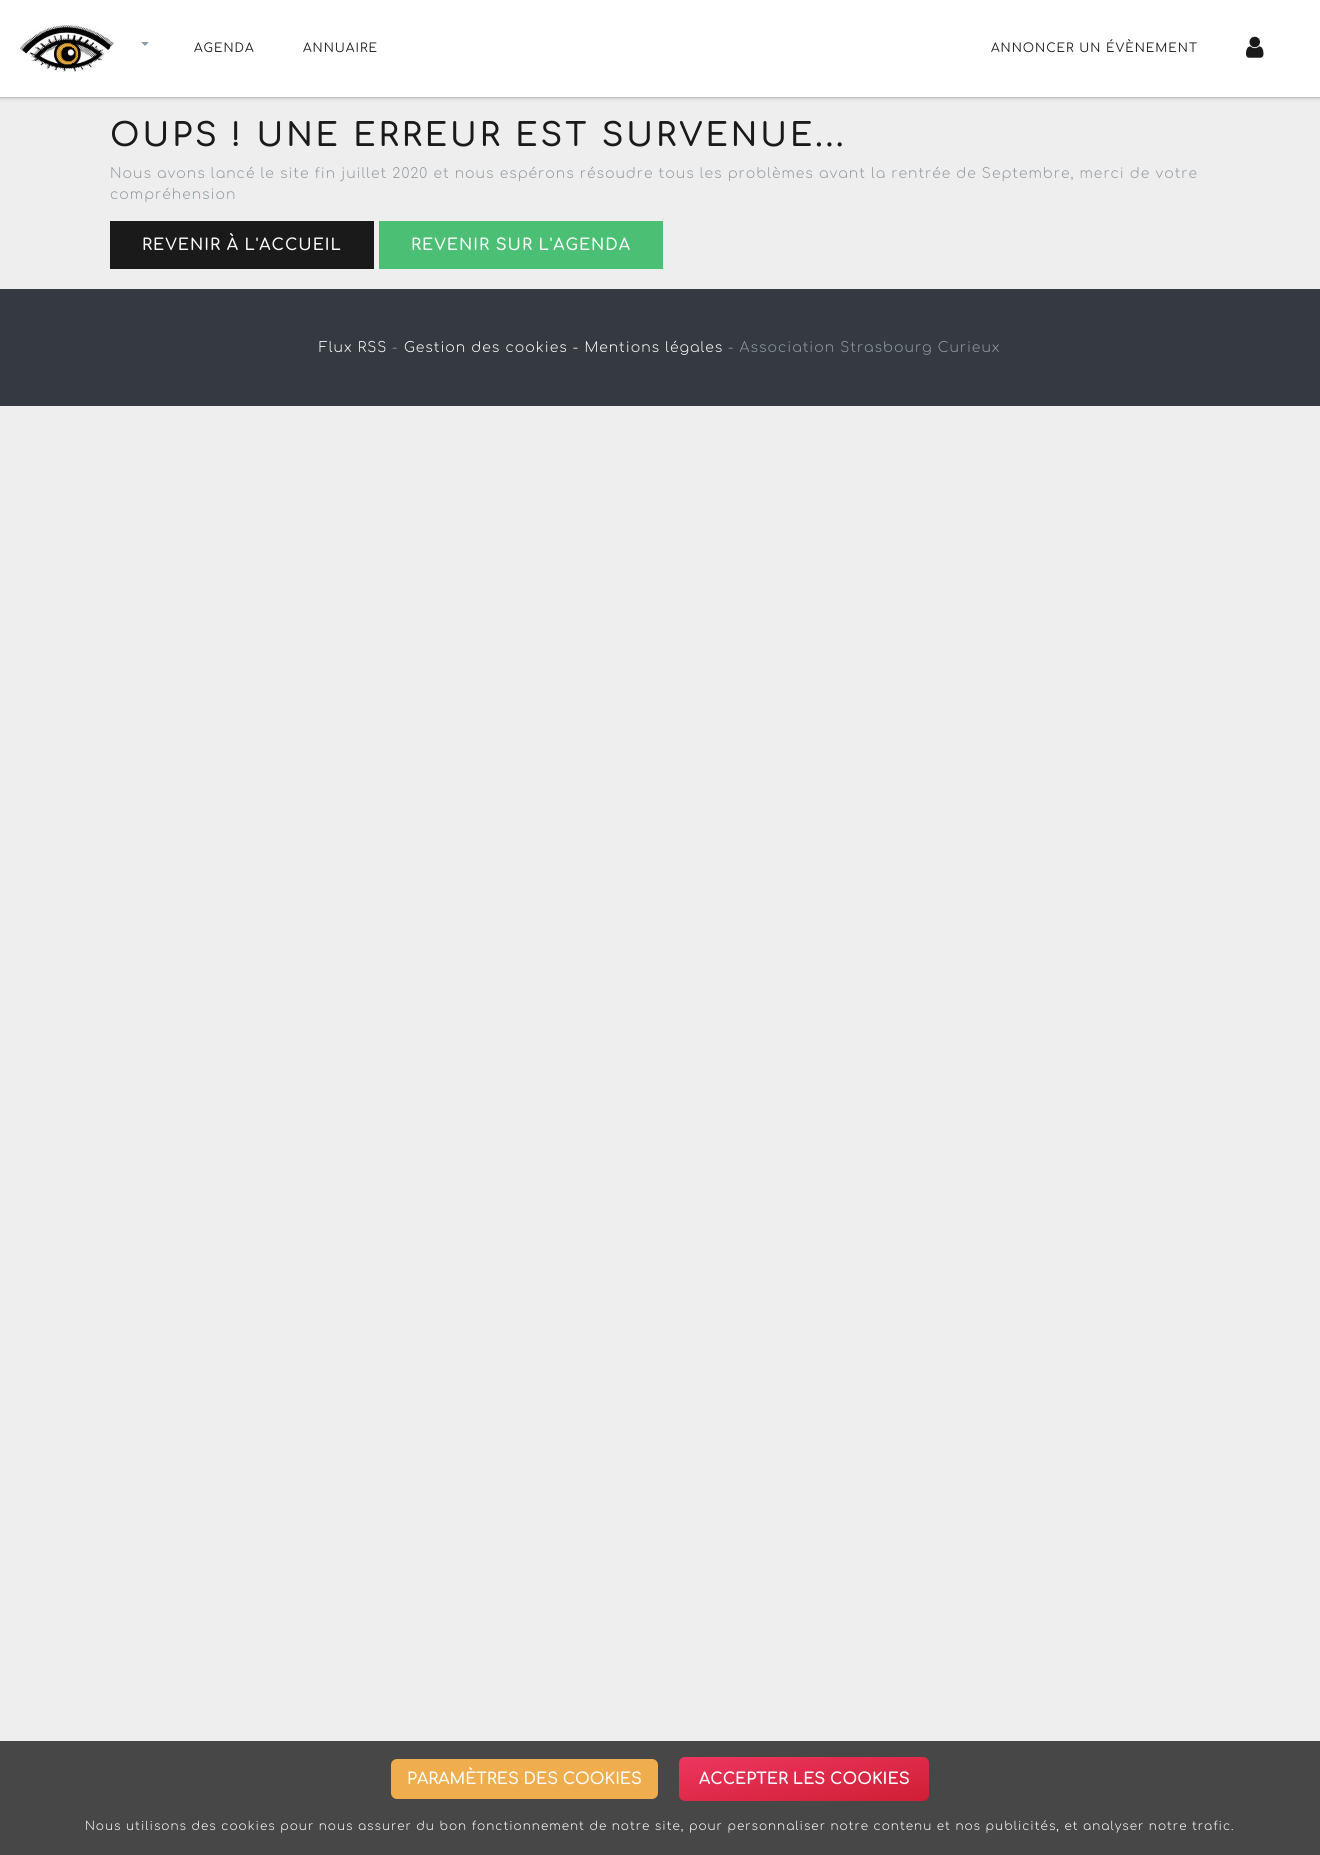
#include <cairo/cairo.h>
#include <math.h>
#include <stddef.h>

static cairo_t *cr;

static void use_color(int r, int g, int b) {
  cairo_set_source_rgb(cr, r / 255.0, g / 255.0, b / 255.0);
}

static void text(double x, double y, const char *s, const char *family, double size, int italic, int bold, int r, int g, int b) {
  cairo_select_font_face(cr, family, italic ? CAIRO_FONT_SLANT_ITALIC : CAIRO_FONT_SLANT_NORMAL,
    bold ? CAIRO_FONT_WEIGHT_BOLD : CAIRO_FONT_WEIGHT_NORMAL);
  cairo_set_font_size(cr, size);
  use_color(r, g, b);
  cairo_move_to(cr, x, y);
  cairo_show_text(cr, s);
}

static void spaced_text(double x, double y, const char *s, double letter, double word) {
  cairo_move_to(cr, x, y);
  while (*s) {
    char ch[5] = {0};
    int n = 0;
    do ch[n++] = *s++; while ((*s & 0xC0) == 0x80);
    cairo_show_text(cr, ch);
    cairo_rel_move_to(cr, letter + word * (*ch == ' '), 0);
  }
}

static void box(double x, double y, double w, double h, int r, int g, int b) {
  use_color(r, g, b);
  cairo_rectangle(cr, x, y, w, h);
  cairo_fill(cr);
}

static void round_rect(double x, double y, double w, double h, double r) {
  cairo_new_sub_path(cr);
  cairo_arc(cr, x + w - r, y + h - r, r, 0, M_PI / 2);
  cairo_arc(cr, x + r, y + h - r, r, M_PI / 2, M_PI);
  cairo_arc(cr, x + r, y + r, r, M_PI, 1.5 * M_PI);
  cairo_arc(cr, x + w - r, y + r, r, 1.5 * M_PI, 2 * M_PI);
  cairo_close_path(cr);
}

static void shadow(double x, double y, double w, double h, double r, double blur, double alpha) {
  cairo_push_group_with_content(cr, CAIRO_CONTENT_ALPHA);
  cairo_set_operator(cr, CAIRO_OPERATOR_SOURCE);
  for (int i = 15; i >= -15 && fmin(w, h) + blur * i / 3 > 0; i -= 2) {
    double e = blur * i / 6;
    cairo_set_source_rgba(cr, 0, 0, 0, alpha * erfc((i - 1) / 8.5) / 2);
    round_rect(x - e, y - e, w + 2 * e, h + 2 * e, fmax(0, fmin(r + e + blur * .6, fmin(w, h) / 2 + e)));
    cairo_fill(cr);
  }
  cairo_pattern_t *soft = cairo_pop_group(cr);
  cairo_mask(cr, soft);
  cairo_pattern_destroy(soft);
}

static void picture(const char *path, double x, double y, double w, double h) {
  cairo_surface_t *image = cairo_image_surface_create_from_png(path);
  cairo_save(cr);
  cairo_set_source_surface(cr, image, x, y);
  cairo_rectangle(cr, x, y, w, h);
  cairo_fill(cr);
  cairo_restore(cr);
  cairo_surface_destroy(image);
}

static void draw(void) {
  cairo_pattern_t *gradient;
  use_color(238, 238, 238);
  cairo_paint(cr);
  use_color(128, 128, 128);
  shadow(0, 0, 1320, 97, 0, 2, 1);
  box(0, 0, 1320, 97, 255, 255, 255);
  picture("img_01.png", 20, 24, 94, 49);
  use_color(145, 154, 161);
  cairo_new_path(cr);
  cairo_move_to(cr, 141, 42);
  cairo_line_to(cr, 149, 42);
  cairo_line_to(cr, 145, 46);
  cairo_close_path(cr);
  cairo_fill(cr);
  picture("img_02.png", 1246, 36, 18, 22);
  box(110, 221, 264, 48, 26, 26, 26);
  box(379, 221, 284, 48, 75, 191, 115);
  box(0, 289, 1320, 117, 52, 58, 64);
  box(0, 1741, 1320, 114, 71, 71, 71);
  use_color(240, 173, 78);
  round_rect(391, 1759, 267, 40, 6);
  cairo_fill(cr);
  gradient = cairo_pattern_create_linear(812, 1823, 796, 1735);
  cairo_pattern_add_color_stop_rgba(gradient, 0, 0.812, 0.118, 0.204, 1);
  cairo_pattern_add_color_stop_rgba(gradient, 1, 0.933, 0.212, 0.373, 1);
  cairo_set_source(cr, gradient);
  cairo_pattern_destroy(gradient);
  round_rect(679, 1757, 250, 44, 6);
  cairo_fill(cr);
  cairo_select_font_face(cr, "Comfortaa", CAIRO_FONT_SLANT_NORMAL, CAIRO_FONT_WEIGHT_NORMAL);
  cairo_set_font_size(cr, 12.25);
  use_color(26, 26, 26);
  spaced_text(194, 52, "AGENDA", 1, 0);
  spaced_text(303, 52, "ANNUAIRE", 1, 0);
  spaced_text(991, 52, "ANNONCER UN ÉVÈNEMENT", 1, 0);
  cairo_select_font_face(cr, "Comfortaa SemiBold", CAIRO_FONT_SLANT_NORMAL, CAIRO_FONT_WEIGHT_NORMAL);
  cairo_set_font_size(cr, 32);
  spaced_text(110, 146, "OUPS ! UNE ERREUR EST SURVENUE...", 3, 0);
  cairo_select_font_face(cr, "Comfortaa Light", CAIRO_FONT_SLANT_NORMAL, CAIRO_FONT_WEIGHT_NORMAL);
  cairo_set_font_size(cr, 14);
  use_color(145, 154, 161);
  spaced_text(110, 178, "Nous avons lancé le site fin juillet 2020 et nous espérons résoudre tous les problèmes avant la rentrée de Septembre, merci de votre", 1, 0);
  spaced_text(110, 199, "compréhension", 1, 0);
  cairo_select_font_face(cr, "Comfortaa SemiBold", CAIRO_FONT_SLANT_NORMAL, CAIRO_FONT_WEIGHT_NORMAL);
  cairo_set_font_size(cr, 16);
  use_color(255, 255, 255);
  spaced_text(142, 250, "REVENIR À L'ACCUEIL", 1, 0);
  spaced_text(411, 250, "REVENIR SUR L'AGENDA", 1, 0);
  cairo_select_font_face(cr, "Comfortaa Light", CAIRO_FONT_SLANT_NORMAL, CAIRO_FONT_WEIGHT_NORMAL);
  cairo_set_font_size(cr, 14);
  spaced_text(319, 352, "Flux RSS", 1, 0);
  use_color(145, 154, 161);
  spaced_text(392, 352, "-", 1, 0);
  use_color(255, 255, 255);
  spaced_text(404, 352, "Gestion des cookies - Mentions légales", 1, 0);
  use_color(145, 154, 161);
  spaced_text(728, 352, "- Association Strasbourg Curieux", 1, 0);
  text(407, 1784, "PARAMÈTRES DES COOKIES", "Comfortaa SemiBold", 16, 0, 0, 255, 255, 255);
  text(699, 1784, "ACCEPTER LES COOKIES", "Comfortaa", 16, 0, 1, 255, 255, 255);
  cairo_select_font_face(cr, "Comfortaa Light", CAIRO_FONT_SLANT_NORMAL, CAIRO_FONT_WEIGHT_NORMAL);
  cairo_set_font_size(cr, 12);
  spaced_text(85, 1830, "Nous utilisons des cookies pour nous assurer du bon fonctionnement de notre site, pour personnaliser notre contenu et nos publicités, et analyser notre trafic.", 1, 0);
}

int main(void) {
  cairo_surface_t *surface = cairo_image_surface_create(CAIRO_FORMAT_RGB24, 1320, 1855);
  cr = cairo_create(surface);
  cairo_font_options_t *options = cairo_font_options_create();
  cairo_font_options_set_hint_metrics(options, CAIRO_HINT_METRICS_OFF);
  cairo_font_options_set_hint_style(options, CAIRO_HINT_STYLE_NONE);
  cairo_set_font_options(cr, options);
  cairo_set_miter_limit(cr, 4);
  draw();
  cairo_surface_write_to_png(surface, "out.png");
  cairo_font_options_destroy(options);
  cairo_destroy(cr);
  cairo_surface_destroy(surface);
  return 0;
}
